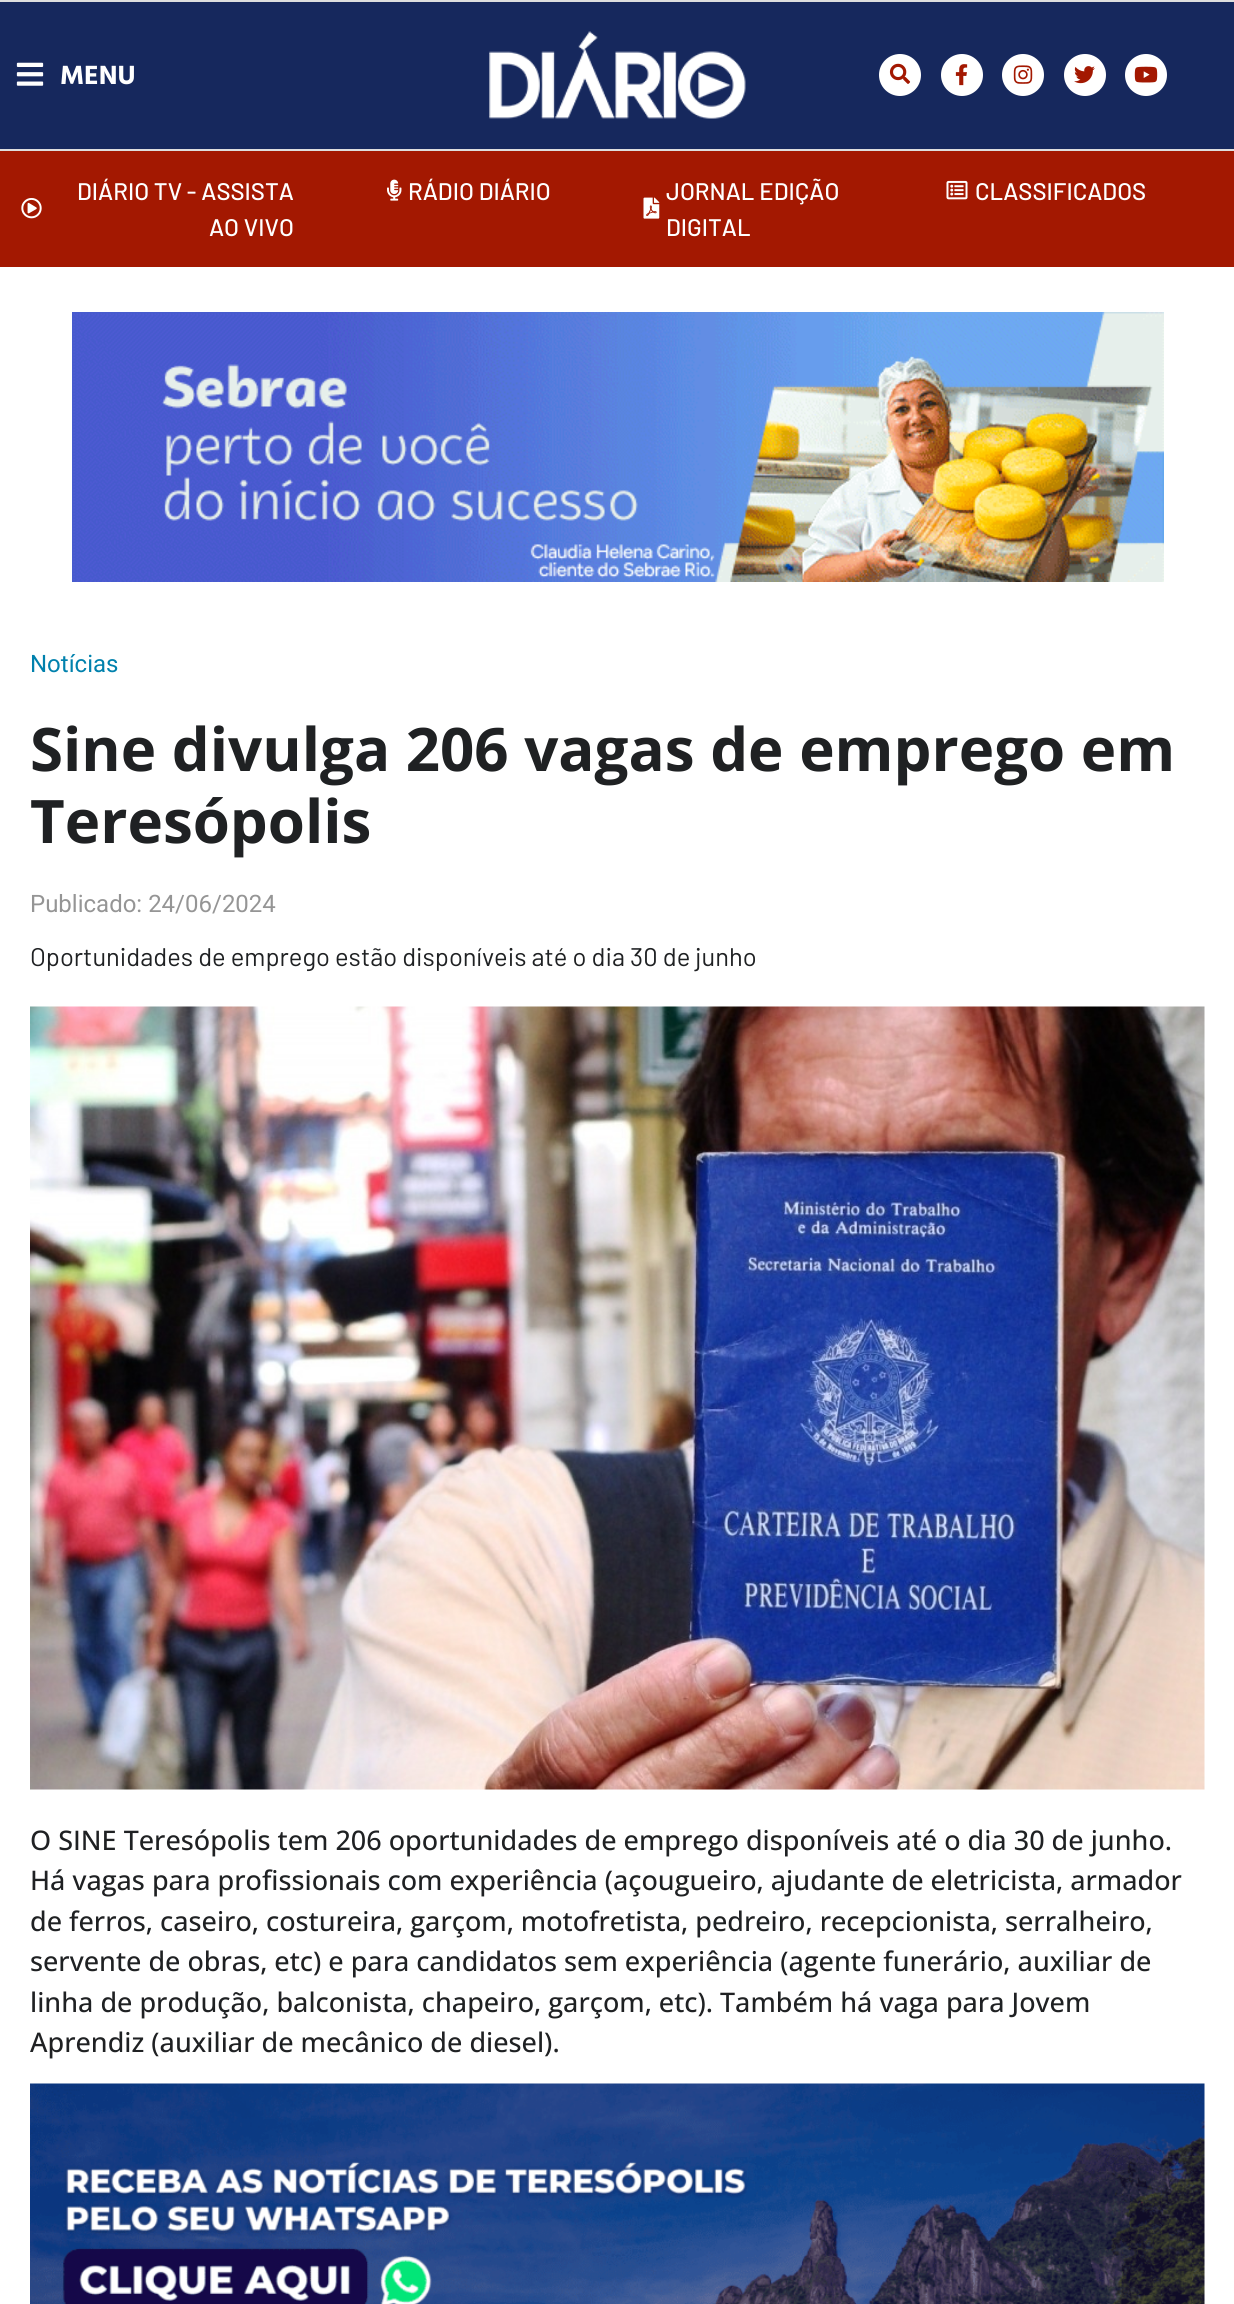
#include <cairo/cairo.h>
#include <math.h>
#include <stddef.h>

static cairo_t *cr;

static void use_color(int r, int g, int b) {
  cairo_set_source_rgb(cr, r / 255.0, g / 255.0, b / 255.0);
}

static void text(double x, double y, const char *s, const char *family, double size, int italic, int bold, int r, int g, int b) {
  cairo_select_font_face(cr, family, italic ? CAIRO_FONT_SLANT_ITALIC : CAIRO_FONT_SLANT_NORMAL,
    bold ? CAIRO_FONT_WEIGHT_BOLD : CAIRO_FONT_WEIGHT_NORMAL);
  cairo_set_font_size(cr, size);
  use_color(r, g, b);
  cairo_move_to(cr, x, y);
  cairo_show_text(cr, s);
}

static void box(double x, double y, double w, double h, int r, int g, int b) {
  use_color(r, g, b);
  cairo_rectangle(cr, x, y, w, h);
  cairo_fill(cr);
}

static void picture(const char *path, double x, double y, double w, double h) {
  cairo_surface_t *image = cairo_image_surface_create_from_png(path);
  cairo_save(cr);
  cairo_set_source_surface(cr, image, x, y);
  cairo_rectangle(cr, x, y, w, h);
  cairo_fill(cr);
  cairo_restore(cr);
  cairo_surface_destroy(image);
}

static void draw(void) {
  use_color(255, 255, 255);
  cairo_paint(cr);
  box(0, 2, 1234, 147, 22, 40, 93);
  box(0, 0, 1234, 2, 222, 222, 222);
  box(0, 149, 1234, 2, 222, 222, 222);
  picture("img_01.png", 16, 62, 28, 24);
  picture("img_02.png", 489, 31, 257, 88);
  use_color(255, 255, 255);
  cairo_arc(cr, 900, 75, 21, 0, 2 * M_PI);
  cairo_fill(cr);
  picture("img_03.png", 889, 63, 22, 21);
  cairo_arc(cr, 962, 75, 21, 0, 2 * M_PI);
  cairo_fill(cr);
  picture("img_04.png", 955, 64, 13, 22);
  cairo_arc(cr, 1023, 75, 21, 0, 2 * M_PI);
  cairo_fill(cr);
  picture("img_05.png", 1013, 65, 20, 19);
  cairo_arc(cr, 1085, 75, 21, 0, 2 * M_PI);
  cairo_fill(cr);
  picture("img_06.png", 1074, 66, 21, 18);
  cairo_arc(cr, 1146, 75, 21, 0, 2 * M_PI);
  cairo_fill(cr);
  picture("img_07.png", 1134, 66, 24, 17);
  box(0, 151, 1234, 116, 163, 24, 1);
  picture("img_08.png", 21, 198, 21, 21);
  picture("img_09.png", 387, 179, 15, 22);
  picture("img_10.png", 643, 197, 17, 22);
  picture("img_11.png", 946, 180, 22, 20);
  picture("img_12.png", 72, 312, 1092, 270);
  picture("img_13.png", 30, 1006, 1175, 784);
  picture("img_14.png", 30, 2083, 1175, 221);
  text(60, 84, "MENU", "Hind Vadodara", 27, 0, 1, 255, 255, 255);
  text(77, 200, "DIÁRIO TV - ASSISTA", "Barlow Medium", 24, 0, 0, 255, 255, 255);
  text(209, 236, "AO VIVO", "Barlow Medium", 24, 0, 0, 255, 255, 255);
  text(408, 200, "RÁDIO DIÁRIO", "Barlow Medium", 24, 0, 0, 255, 255, 255);
  text(666, 200, "JORNAL EDIÇÃO", "Barlow Medium", 24, 0, 0, 255, 255, 255);
  text(666, 236, "DIGITAL", "Barlow Medium", 24, 0, 0, 255, 255, 255);
  text(975, 200, "CLASSIFICADOS", "Barlow Medium", 24, 0, 0, 255, 255, 255);
  text(30, 672, "Notícias", "Roboto", 24, 0, 0, 0, 129, 173);
  text(30, 771, "Sine divulga 206 vagas de emprego em", "Open Sans", 60, 0, 1, 31, 33, 35);
  text(30, 843, "Teresópolis", "Open Sans", 60, 0, 1, 31, 33, 35);
  text(30, 912, "Publicado: 24/06/2024", "Roboto", 24, 0, 0, 149, 149, 149);
  text(30, 966, "Oportunidades de emprego estão disponíveis até o dia 30 de junho", "Barlow", 25.5, 0, 0, 31, 33, 35);
  text(30, 1850, "O SINE Teresópolis tem 206 oportunidades de emprego disponíveis até o dia 30 de junho.", "Open Sans Medium", 27, 0, 0, 31, 33, 35);
  text(30, 1890, "Há vagas para profissionais com experiência (açougueiro, ajudante de eletricista, armador", "Open Sans Medium", 27, 0, 0, 31, 33, 35);
  text(30, 1931, "de ferros, caseiro, costureira, garçom, motofretista, pedreiro, recepcionista, serralheiro,", "Open Sans Medium", 27, 0, 0, 31, 33, 35);
  text(30, 1971, "servente de obras, etc) e para candidatos sem experiência (agente funerário, auxiliar de", "Open Sans Medium", 27, 0, 0, 31, 33, 35);
  text(30, 2012, "linha de produção, balconista, chapeiro, garçom, etc). Também há vaga para Jovem", "Open Sans Medium", 27, 0, 0, 31, 33, 35);
  text(30, 2052, "Aprendiz (auxiliar de mecânico de diesel).", "Open Sans Medium", 27, 0, 0, 31, 33, 35);
}

int main(void) {
  cairo_surface_t *surface = cairo_image_surface_create(CAIRO_FORMAT_RGB24, 1234, 2304);
  cr = cairo_create(surface);
  cairo_font_options_t *options = cairo_font_options_create();
  cairo_font_options_set_hint_metrics(options, CAIRO_HINT_METRICS_OFF);
  cairo_font_options_set_hint_style(options, CAIRO_HINT_STYLE_NONE);
  cairo_set_font_options(cr, options);
  cairo_set_miter_limit(cr, 4);
  draw();
  cairo_surface_write_to_png(surface, "out.png");
  cairo_font_options_destroy(options);
  cairo_destroy(cr);
  cairo_surface_destroy(surface);
  return 0;
}
